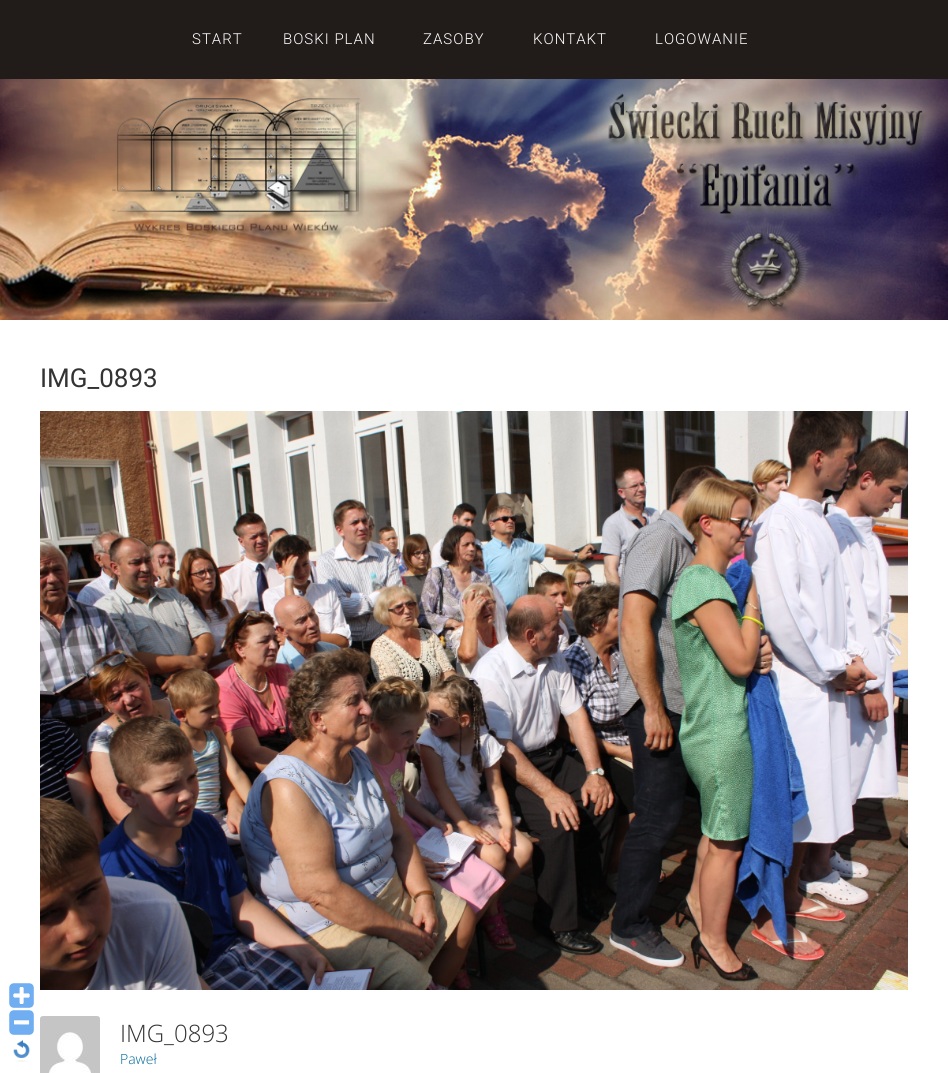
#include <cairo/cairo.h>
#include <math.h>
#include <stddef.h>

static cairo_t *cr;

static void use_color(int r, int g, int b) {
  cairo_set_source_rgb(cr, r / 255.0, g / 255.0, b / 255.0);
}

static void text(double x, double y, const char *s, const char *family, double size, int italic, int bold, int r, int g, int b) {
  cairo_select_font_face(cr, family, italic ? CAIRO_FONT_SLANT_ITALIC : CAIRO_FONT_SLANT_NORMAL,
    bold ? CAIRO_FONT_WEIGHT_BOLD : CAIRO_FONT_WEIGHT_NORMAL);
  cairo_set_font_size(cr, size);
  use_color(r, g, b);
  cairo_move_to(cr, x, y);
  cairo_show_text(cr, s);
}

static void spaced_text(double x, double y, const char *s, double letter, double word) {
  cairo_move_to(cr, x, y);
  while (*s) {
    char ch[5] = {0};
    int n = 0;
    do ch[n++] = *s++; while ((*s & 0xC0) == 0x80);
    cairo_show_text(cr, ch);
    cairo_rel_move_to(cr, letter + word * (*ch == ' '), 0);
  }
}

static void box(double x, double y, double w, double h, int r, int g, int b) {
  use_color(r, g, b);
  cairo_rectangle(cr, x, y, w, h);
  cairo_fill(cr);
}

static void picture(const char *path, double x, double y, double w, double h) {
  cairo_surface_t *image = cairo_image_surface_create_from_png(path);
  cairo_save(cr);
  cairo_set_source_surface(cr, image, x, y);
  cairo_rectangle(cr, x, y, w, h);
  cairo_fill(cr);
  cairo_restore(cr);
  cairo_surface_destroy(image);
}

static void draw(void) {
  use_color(33, 27, 26);
  cairo_paint(cr);
  box(0, 320, 948, 753, 255, 255, 255);
  picture("img_01.png", 9, 983, 25, 25);
  picture("img_02.png", 9, 1010, 25, 25);
  picture("img_03.png", 13, 1040, 17, 22);
  picture("img_04.png", 0, 79, 948, 241);
  picture("img_05.png", 40, 411, 868, 579);
  picture("img_06.png", 40, 1016, 60, 57);
  cairo_select_font_face(cr, "Roboto Light", CAIRO_FONT_SLANT_NORMAL, CAIRO_FONT_WEIGHT_NORMAL);
  cairo_set_font_size(cr, 15);
  spaced_text(192, 44, "START", 1, 0);
  spaced_text(283, 44, "BOSKI PLAN", 1, 0);
  spaced_text(423, 44, "ZASOBY", 1, 0);
  spaced_text(533, 44, "KONTAKT", 1, 0);
  spaced_text(655, 44, "LOGOWANIE", 1, 0);
  text(40, 387, "IMG_0893", "Roboto", 26, 0, 0, 51, 51, 51);
  text(120, 1042, "IMG_0893", "Open Sans Light", 24, 0, 0, 51, 51, 51);
  text(120, 1064, "Paweł", "Open Sans Light", 14, 0, 0, 0, 102, 153);
}

int main(void) {
  cairo_surface_t *surface = cairo_image_surface_create(CAIRO_FORMAT_RGB24, 948, 1073);
  cr = cairo_create(surface);
  cairo_font_options_t *options = cairo_font_options_create();
  cairo_font_options_set_hint_metrics(options, CAIRO_HINT_METRICS_OFF);
  cairo_font_options_set_hint_style(options, CAIRO_HINT_STYLE_NONE);
  cairo_set_font_options(cr, options);
  cairo_set_miter_limit(cr, 4);
  draw();
  cairo_surface_write_to_png(surface, "out.png");
  cairo_font_options_destroy(options);
  cairo_destroy(cr);
  cairo_surface_destroy(surface);
  return 0;
}
